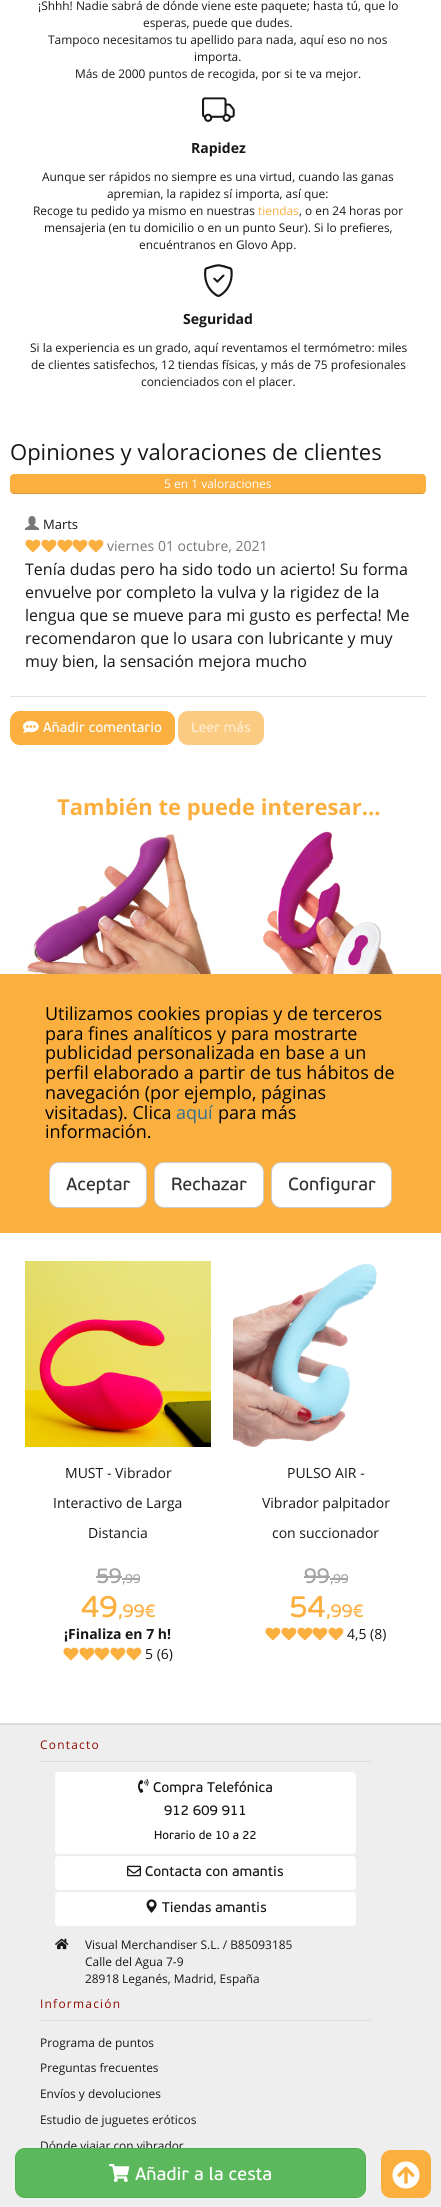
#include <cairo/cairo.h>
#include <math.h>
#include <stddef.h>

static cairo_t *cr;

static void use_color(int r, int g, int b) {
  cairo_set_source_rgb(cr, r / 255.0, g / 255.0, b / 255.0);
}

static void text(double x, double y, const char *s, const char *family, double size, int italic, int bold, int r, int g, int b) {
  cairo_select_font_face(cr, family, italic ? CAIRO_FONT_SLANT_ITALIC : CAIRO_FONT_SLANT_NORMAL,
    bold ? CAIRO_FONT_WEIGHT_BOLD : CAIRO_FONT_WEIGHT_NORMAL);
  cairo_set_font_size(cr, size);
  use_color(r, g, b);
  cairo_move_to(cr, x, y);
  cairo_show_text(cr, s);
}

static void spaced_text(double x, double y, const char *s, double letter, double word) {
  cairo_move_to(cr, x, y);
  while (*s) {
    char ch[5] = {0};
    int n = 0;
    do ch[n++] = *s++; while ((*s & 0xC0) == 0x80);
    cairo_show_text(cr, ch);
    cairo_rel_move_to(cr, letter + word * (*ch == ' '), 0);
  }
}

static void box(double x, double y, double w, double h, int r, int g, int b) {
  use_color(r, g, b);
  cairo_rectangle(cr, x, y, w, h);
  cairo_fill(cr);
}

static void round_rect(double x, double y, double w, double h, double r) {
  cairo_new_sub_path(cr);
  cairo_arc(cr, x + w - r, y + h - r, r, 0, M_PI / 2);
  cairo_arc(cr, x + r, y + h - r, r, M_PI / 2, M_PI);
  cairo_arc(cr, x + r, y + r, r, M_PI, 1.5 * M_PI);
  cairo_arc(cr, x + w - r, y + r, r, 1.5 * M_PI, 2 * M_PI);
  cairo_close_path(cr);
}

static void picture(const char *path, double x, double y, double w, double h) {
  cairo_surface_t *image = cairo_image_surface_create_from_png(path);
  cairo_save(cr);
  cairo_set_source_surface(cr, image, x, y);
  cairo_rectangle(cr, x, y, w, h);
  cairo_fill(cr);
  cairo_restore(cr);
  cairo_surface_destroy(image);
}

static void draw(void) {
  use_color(255, 255, 255);
  cairo_paint(cr);
  picture("img_01.png", 202, 97, 33, 25);
  picture("img_02.png", 204, 264, 29, 33);
  use_color(251, 175, 63);
  round_rect(10, 474, 416, 20, 4);
  cairo_fill(cr);
  cairo_save(cr);
  round_rect(10, 474, 416, 20, 4);
  cairo_clip(cr);
  cairo_set_source_rgba(cr, 0, 0, 0, 0.15);
  cairo_rectangle(cr, 10, 493, 416, 1);
  cairo_fill(cr);
  cairo_restore(cr);
  box(10, 696, 416, 1, 225, 225, 225);
  picture("img_03.png", 25, 516, 14, 14);
  picture("img_04.png", 25, 539, 16, 14);
  picture("img_04.png", 41, 539, 16, 14);
  picture("img_04.png", 57, 539, 16, 14);
  picture("img_05.png", 72, 539, 16, 14);
  picture("img_04.png", 88, 539, 16, 14);
  use_color(251, 175, 63);
  round_rect(10.5, 711.5, 164, 33, 9.5);
  cairo_fill_preserve(cr);
  cairo_set_line_width(cr, 1);
  cairo_stroke(cr);
  picture("img_06.png", 23, 720, 16, 14);
  picture("img_07.png", 43, 721, 119, 12);
  use_color(252, 203, 130);
  round_rect(178.5, 711.5, 85, 33, 9.5);
  cairo_fill_preserve(cr);
  cairo_stroke(cr);
  picture("img_08.png", 192, 721, 59, 12);
  picture("img_09.png", 25, 830, 186, 144);
  picture("img_10.png", 263, 831, 146, 143);
  picture("img_11.png", 25, 1261, 186, 186);
  picture("img_12.png", 97, 1568, 24, 16);
  picture("img_13.png", 122, 1574, 19, 11);
  box(96, 1576, 26, 2, 164, 164, 164);
  box(122, 1578, 18, 2, 164, 164, 164);
  picture("img_14.png", 81, 1595, 36, 23);
  picture("img_15.png", 119, 1604, 37, 16);
  picture("img_04.png", 63, 1647, 16, 14);
  picture("img_04.png", 79, 1647, 16, 14);
  picture("img_05.png", 94, 1647, 16, 14);
  picture("img_04.png", 110, 1647, 16, 14);
  picture("img_04.png", 126, 1647, 16, 14);
  picture("img_16.png", 233, 1263, 144, 184);
  picture("img_17.png", 304, 1568, 25, 16);
  picture("img_13.png", 330, 1574, 19, 11);
  box(304, 1576, 26, 2, 164, 164, 164);
  box(330, 1578, 18, 2, 164, 164, 164);
  picture("img_18.png", 290, 1595, 35, 23);
  picture("img_15.png", 327, 1604, 37, 16);
  picture("img_04.png", 265, 1627, 16, 14);
  picture("img_04.png", 281, 1627, 16, 14);
  picture("img_04.png", 297, 1627, 16, 14);
  picture("img_05.png", 312, 1627, 16, 14);
  picture("img_04.png", 328, 1627, 16, 14);
  box(0, 974, 441, 259, 251, 175, 63);
  use_color(255, 255, 255);
  round_rect(49.5, 1162.5, 97, 45, 9.5);
  cairo_fill_preserve(cr);
  use_color(204, 204, 204);
  cairo_stroke(cr);
  picture("img_21.png", 66, 1177, 65, 17);
  use_color(255, 255, 255);
  round_rect(154.5, 1162.5, 109, 45, 9.5);
  cairo_fill_preserve(cr);
  use_color(204, 204, 204);
  cairo_stroke(cr);
  picture("img_22.png", 172, 1177, 75, 14);
  use_color(255, 255, 255);
  round_rect(271.5, 1162.5, 120, 45, 9.5);
  cairo_fill_preserve(cr);
  use_color(204, 204, 204);
  cairo_stroke(cr);
  picture("img_23.png", 289, 1176, 87, 19);
  box(0, 1725, 441, 482, 238, 238, 238);
  box(0, 1723, 441, 2, 221, 221, 221);
  box(40, 1761, 331, 1, 221, 221, 221);
  use_color(255, 255, 255);
  round_rect(55, 1772, 301, 82, 4);
  cairo_fill(cr);
  picture("img_24.png", 138, 1779, 11, 14);
  picture("img_25.png", 153, 1781, 119, 14);
  picture("img_26.png", 164, 1805, 82, 11);
  picture("img_27.png", 154, 1830, 102, 10);
  round_rect(55, 1856, 301, 34, 4);
  cairo_fill(cr);
  picture("img_28.png", 127, 1865, 14, 12);
  picture("img_29.png", 145, 1865, 138, 12);
  round_rect(55, 1892, 301, 34, 4);
  cairo_fill(cr);
  picture("img_30.png", 146, 1899, 11, 14);
  picture("img_31.png", 162, 1901, 105, 12);
  picture("img_32.png", 55, 1938, 14, 12);
  box(40, 2020, 331, 1, 221, 221, 221);
  use_color(251, 175, 63);
  round_rect(381, 2150, 50, 48, 10);
  cairo_fill(cr);
  picture("img_33.png", 392, 2161, 28, 28);
  text(38, 10, "¡Shhh! Nadie sabrá de dónde viene este paquete; hasta tú, que lo", "Open Sans", 11.9, 0, 0, 23, 23, 23);
  text(143, 27, "esperas, puede que dudes.", "Open Sans", 11.9, 0, 0, 23, 23, 23);
  text(48, 44, "Tampoco necesitamos tu apellido para nada, aquí eso no nos", "Open Sans", 11.9, 0, 0, 23, 23, 23);
  text(194, 61, "importa.", "Open Sans", 11.9, 0, 0, 23, 23, 23);
  text(75, 78, "Más de 2000 puntos de recogida, por si te va mejor.", "Open Sans", 11.9, 0, 0, 23, 23, 23);
  text(191, 153, "Rapidez", "Open Sans", 14, 0, 1, 23, 23, 23);
  text(42, 181, "Aunque ser rápidos no siempre es una virtud, cuando las ganas", "Open Sans", 11.9, 0, 0, 23, 23, 23);
  text(107, 198, "apremian, la rapidez sí importa, así que:", "Open Sans", 11.9, 0, 0, 23, 23, 23);
  text(33, 215, "Recoge tu pedido ya mismo en nuestras", "Open Sans", 11.9, 0, 0, 23, 23, 23);
  text(258, 215, "tiendas", "Open Sans", 11.9, 0, 0, 251, 175, 63);
  text(299, 215, ", o en 24 horas por", "Open Sans", 11.9, 0, 0, 23, 23, 23);
  text(44, 232, "mensajeria (en tu domicilio o en un punto Seur). Si lo prefieres,", "Open Sans", 11.9, 0, 0, 23, 23, 23);
  text(139, 249, "encuéntranos en Glovo App.", "Open Sans", 11.9, 0, 0, 23, 23, 23);
  text(183, 324, "Seguridad", "Open Sans", 14, 0, 1, 23, 23, 23);
  text(30, 352, "Si la experiencia es un grado, aquí reventamos el termómetro: miles", "Open Sans", 11.9, 0, 0, 23, 23, 23);
  text(31, 369, "de clientes satisfechos, 12 tiendas físicas, y más de 75 profesionales", "Open Sans", 11.9, 0, 0, 23, 23, 23);
  text(141, 386, "concienciados con el placer.", "Open Sans", 11.9, 0, 0, 23, 23, 23);
  text(10, 460, "Opiniones y valoraciones de clientes", "Open Sans", 22, 0, 0, 23, 23, 23);
  text(164, 488, "5 en 1 valoraciones", "Open Sans", 12, 0, 0, 255, 255, 255);
  text(43, 529, "Marts", "Open Sans", 13, 0, 0, 23, 23, 23);
  text(107, 551, "viernes 01 octubre, 2021", "Open Sans", 14, 0, 0, 119, 119, 119);
  text(25, 575, "Tenía dudas pero ha sido todo un acierto! Su forma", "Open Sans", 16, 0, 0, 23, 23, 23);
  text(25, 598, "envuelve por completo la vulva y la rigidez de la", "Open Sans", 16, 0, 0, 23, 23, 23);
  text(25, 621, "lengua que se mueve para mi gusto es perfecta! Me", "Open Sans", 16, 0, 0, 23, 23, 23);
  text(25, 644, "recomendaron que lo usara con lubricante y muy", "Open Sans", 16, 0, 0, 23, 23, 23);
  text(25, 667, "muy bien, la sensación mejora mucho", "Open Sans", 16, 0, 0, 23, 23, 23);
  text(57, 815, "También te puede interesar...", "Open Sans", 22, 0, 1, 251, 175, 63);
  text(65, 1478, "MUST - Vibrador", "Open Sans", 14, 0, 0, 23, 23, 23);
  text(53, 1508, "Interactivo de Larga", "Open Sans", 14, 0, 0, 23, 23, 23);
  text(88, 1538, "Distancia", "Open Sans", 14, 0, 0, 23, 23, 23);
  text(64, 1639, "¡Finaliza en 7 h!", "Open Sans", 14, 0, 1, 23, 23, 23);
  text(145, 1659, "5 (6)", "Open Sans", 14, 0, 0, 23, 23, 23);
  text(287, 1478, "PULSO AIR -", "Open Sans", 14, 0, 0, 23, 23, 23);
  text(262, 1508, "Vibrador palpitador", "Open Sans", 14, 0, 0, 23, 23, 23);
  text(272, 1538, "con succionador", "Open Sans", 14, 0, 0, 23, 23, 23);
  text(347, 1639, "4,5 (8)", "Open Sans", 14, 0, 0, 23, 23, 23);
  text(45, 1020, "Utilizamos cookies propias y de terceros", "Open Sans", 18, 0, 0, 0, 0, 0);
  text(45, 1040, "para fines analíticos y para mostrarte", "Open Sans", 18, 0, 0, 0, 0, 0);
  text(45, 1059, "publicidad personalizada en base a un", "Open Sans", 18, 0, 0, 0, 0, 0);
  text(45, 1079, "perfil elaborado a partir de tus hábitos de", "Open Sans", 18, 0, 0, 0, 0, 0);
  text(45, 1099, "navegación (por ejemplo, páginas", "Open Sans", 18, 0, 0, 0, 0, 0);
  text(45, 1119, "visitadas). Clica", "Open Sans", 18, 0, 0, 0, 0, 0);
  text(176, 1119, "aquí", "Open Sans", 18, 0, 0, 49, 112, 143);
  text(218, 1119, "para más", "Open Sans", 18, 0, 0, 0, 0, 0);
  text(45, 1138, "información.", "Open Sans", 18, 0, 0, 0, 0, 0);
  cairo_set_font_size(cr, 11.9);
  use_color(142, 11, 0);
  spaced_text(40, 1749, "Contacto", 1.25, 0);
  text(85, 1949, "Visual Merchandiser S.L. / B85093185", "Open Sans", 11.9, 0, 0, 23, 23, 23);
  text(85, 1966, "Calle del Agua 7-9", "Open Sans", 11.9, 0, 0, 23, 23, 23);
  text(85, 1983, "28918 Leganés, Madrid, España", "Open Sans", 11.9, 0, 0, 23, 23, 23);
  use_color(142, 11, 0);
  spaced_text(40, 2008, "Información", 1.25, 0);
  text(40, 2047, "Programa de puntos", "Open Sans", 11.9, 0, 0, 23, 23, 23);
  text(40, 2072, "Preguntas frecuentes", "Open Sans", 11.9, 0, 0, 23, 23, 23);
  text(40, 2098, "Envíos y devoluciones", "Open Sans", 11.9, 0, 0, 23, 23, 23);
  text(40, 2124, "Estudio de juguetes eróticos", "Open Sans", 11.9, 0, 0, 23, 23, 23);
  text(40, 2150, "Dónde viajar con vibrador", "Open Sans", 11.9, 0, 0, 23, 23, 23);
  use_color(92, 184, 92);
  round_rect(15.5, 2148.5, 350, 49, 9.5);
  cairo_fill_preserve(cr);
  use_color(76, 174, 76);
  cairo_stroke(cr);
  picture("img_19.png", 109, 2164, 21, 18);
  picture("img_20.png", 135, 2166, 136, 15);
}

int main(void) {
  cairo_surface_t *surface = cairo_image_surface_create(CAIRO_FORMAT_RGB24, 441, 2207);
  cr = cairo_create(surface);
  cairo_font_options_t *options = cairo_font_options_create();
  cairo_font_options_set_hint_metrics(options, CAIRO_HINT_METRICS_OFF);
  cairo_font_options_set_hint_style(options, CAIRO_HINT_STYLE_NONE);
  cairo_set_font_options(cr, options);
  cairo_set_miter_limit(cr, 4);
  draw();
  cairo_surface_write_to_png(surface, "out.png");
  cairo_font_options_destroy(options);
  cairo_destroy(cr);
  cairo_surface_destroy(surface);
  return 0;
}
